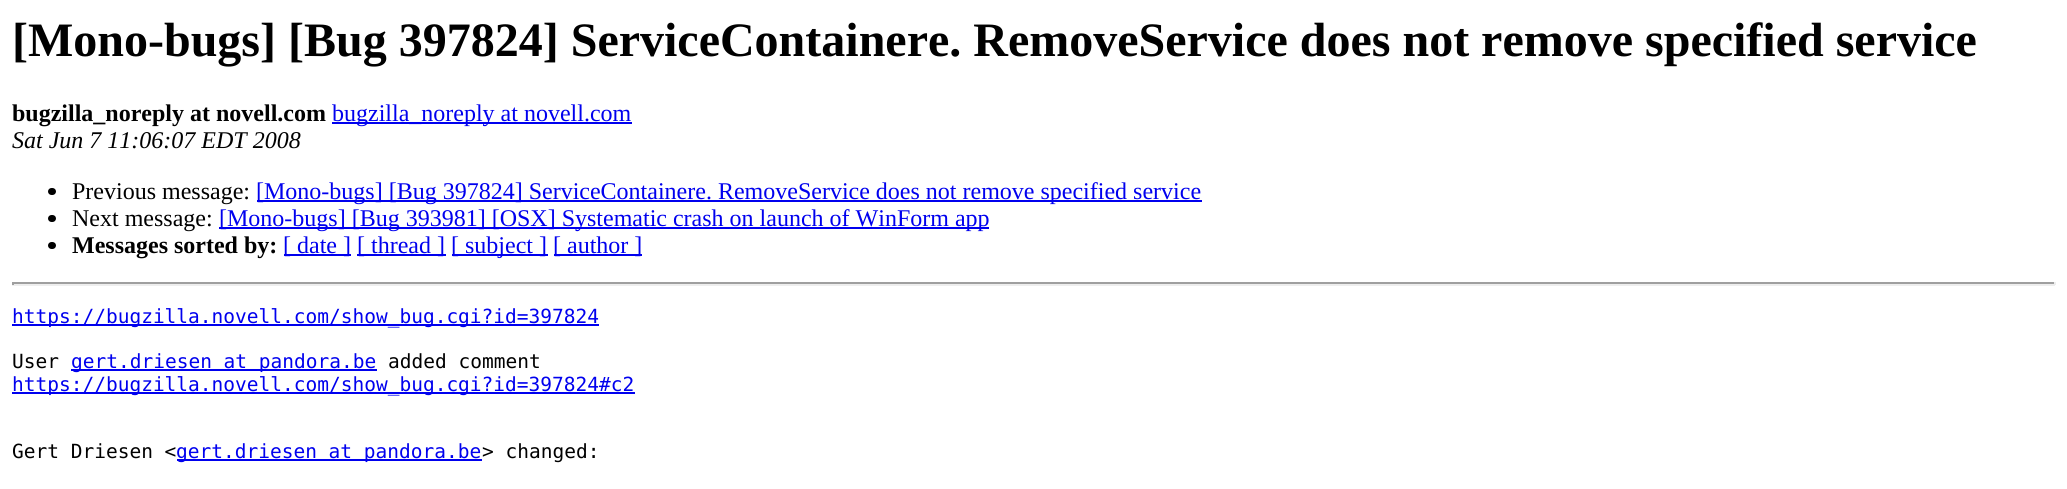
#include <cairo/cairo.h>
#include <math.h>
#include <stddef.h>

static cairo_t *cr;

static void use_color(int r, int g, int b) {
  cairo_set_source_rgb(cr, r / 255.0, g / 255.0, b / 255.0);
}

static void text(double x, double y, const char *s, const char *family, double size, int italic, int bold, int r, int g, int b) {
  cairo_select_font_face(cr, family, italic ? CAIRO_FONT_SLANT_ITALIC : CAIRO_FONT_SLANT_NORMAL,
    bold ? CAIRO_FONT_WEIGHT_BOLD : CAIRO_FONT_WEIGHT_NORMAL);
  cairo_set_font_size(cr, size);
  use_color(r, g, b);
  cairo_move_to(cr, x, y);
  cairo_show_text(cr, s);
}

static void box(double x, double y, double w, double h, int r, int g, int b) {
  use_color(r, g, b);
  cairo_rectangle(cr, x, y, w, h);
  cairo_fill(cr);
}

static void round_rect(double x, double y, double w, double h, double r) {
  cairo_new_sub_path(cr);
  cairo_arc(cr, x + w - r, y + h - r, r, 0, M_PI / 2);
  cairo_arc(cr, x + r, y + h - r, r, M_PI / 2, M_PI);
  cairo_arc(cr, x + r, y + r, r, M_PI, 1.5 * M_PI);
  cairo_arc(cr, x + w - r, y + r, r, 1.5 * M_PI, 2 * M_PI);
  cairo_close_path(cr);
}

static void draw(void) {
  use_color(255, 255, 255);
  cairo_paint(cr);
  box(332, 122, 300, 2, 0, 0, 238);
  use_color(0, 0, 0);
  round_rect(48, 188, 8, 7, 3.5);
  cairo_fill(cr);
  box(257, 200, 945, 2, 0, 0, 238);
  use_color(0, 0, 0);
  round_rect(48, 215, 8, 7, 3.5);
  cairo_fill(cr);
  box(219, 227, 770, 2, 0, 0, 238);
  use_color(0, 0, 0);
  round_rect(48, 242, 8, 7, 3.5);
  cairo_fill(cr);
  box(284, 254, 67, 2, 0, 0, 238);
  box(357, 254, 89, 2, 0, 0, 238);
  box(452, 254, 96, 2, 0, 0, 238);
  box(554, 254, 88, 2, 0, 0, 238);
  box(12, 282, 2043, 2, 159, 159, 159);
  box(2054, 282, 2, 3, 238, 238, 238);
  box(12, 284, 2043, 2, 238, 238, 238);
  box(12, 282, 2, 3, 159, 159, 159);
  box(12, 324, 587, 2, 0, 0, 238);
  box(71, 369, 306, 2, 0, 0, 238);
  box(12, 392, 623, 2, 0, 0, 238);
  box(177, 459, 305, 2, 0, 0, 238);
  text(12, 56, "[Mono-bugs] [Bug 397824] ServiceContainere. RemoveService does not remove specified service", "Liberation Serif", 48, 0, 1, 0, 0, 0);
  text(12, 121, "bugzilla_noreply at novell.com", "Liberation Serif", 24, 0, 1, 0, 0, 0);
  text(332, 121, "bugzilla_noreply at novell.com", "Liberation Serif", 24, 0, 0, 0, 0, 238);
  text(12, 148, "Sat Jun 7 11:06:07 EDT 2008", "Liberation Serif", 24, 1, 0, 0, 0, 0);
  text(72, 199, "Previous message:", "Liberation Serif", 24, 0, 0, 0, 0, 0);
  text(256, 199, "[Mono-bugs] [Bug 397824] ServiceContainere. RemoveService does not remove specified service", "Liberation Serif", 24, 0, 0, 0, 0, 238);
  text(72, 226, "Next message:", "Liberation Serif", 24, 0, 0, 0, 0, 0);
  text(219, 226, "[Mono-bugs] [Bug 393981] [OSX] Systematic crash on launch of WinForm app", "Liberation Serif", 24, 0, 0, 0, 0, 238);
  text(72, 253, "Messages sorted by:", "Liberation Serif", 24, 0, 1, 0, 0, 0);
  text(283, 253, "[ date ]", "Liberation Serif", 24, 0, 0, 0, 0, 238);
  text(357, 253, "[ thread ]", "Liberation Serif", 24, 0, 0, 0, 0, 238);
  text(451, 253, "[ subject ]", "Liberation Serif", 24, 0, 0, 0, 0, 238);
  text(553, 253, "[ author ]", "Liberation Serif", 24, 0, 0, 0, 0, 238);
  text(12, 323, "https://bugzilla.novell.com/show_bug.cgi?id=397824", "DejaVu Sans Mono", 19.5, 0, 0, 0, 0, 238);
  text(12, 368, "User", "DejaVu Sans Mono", 19.5, 0, 0, 0, 0, 0);
  text(71, 368, "gert.driesen at pandora.be", "DejaVu Sans Mono", 19.5, 0, 0, 0, 0, 238);
  text(388, 368, "added comment", "DejaVu Sans Mono", 19.5, 0, 0, 0, 0, 0);
  text(12, 391, "https://bugzilla.novell.com/show_bug.cgi?id=397824#c2", "DejaVu Sans Mono", 19.5, 0, 0, 0, 0, 238);
  text(12, 458, "Gert Driesen <", "DejaVu Sans Mono", 19.5, 0, 0, 0, 0, 0);
  text(176, 458, "gert.driesen at pandora.be", "DejaVu Sans Mono", 19.5, 0, 0, 0, 0, 238);
  text(482, 458, "> changed:", "DejaVu Sans Mono", 19.5, 0, 0, 0, 0, 0);
}

int main(void) {
  cairo_surface_t *surface = cairo_image_surface_create(CAIRO_FORMAT_RGB24, 2067, 489);
  cr = cairo_create(surface);
  cairo_font_options_t *options = cairo_font_options_create();
  cairo_font_options_set_hint_metrics(options, CAIRO_HINT_METRICS_OFF);
  cairo_font_options_set_hint_style(options, CAIRO_HINT_STYLE_NONE);
  cairo_set_font_options(cr, options);
  cairo_set_miter_limit(cr, 4);
  draw();
  cairo_surface_write_to_png(surface, "out.png");
  cairo_font_options_destroy(options);
  cairo_destroy(cr);
  cairo_surface_destroy(surface);
  return 0;
}
